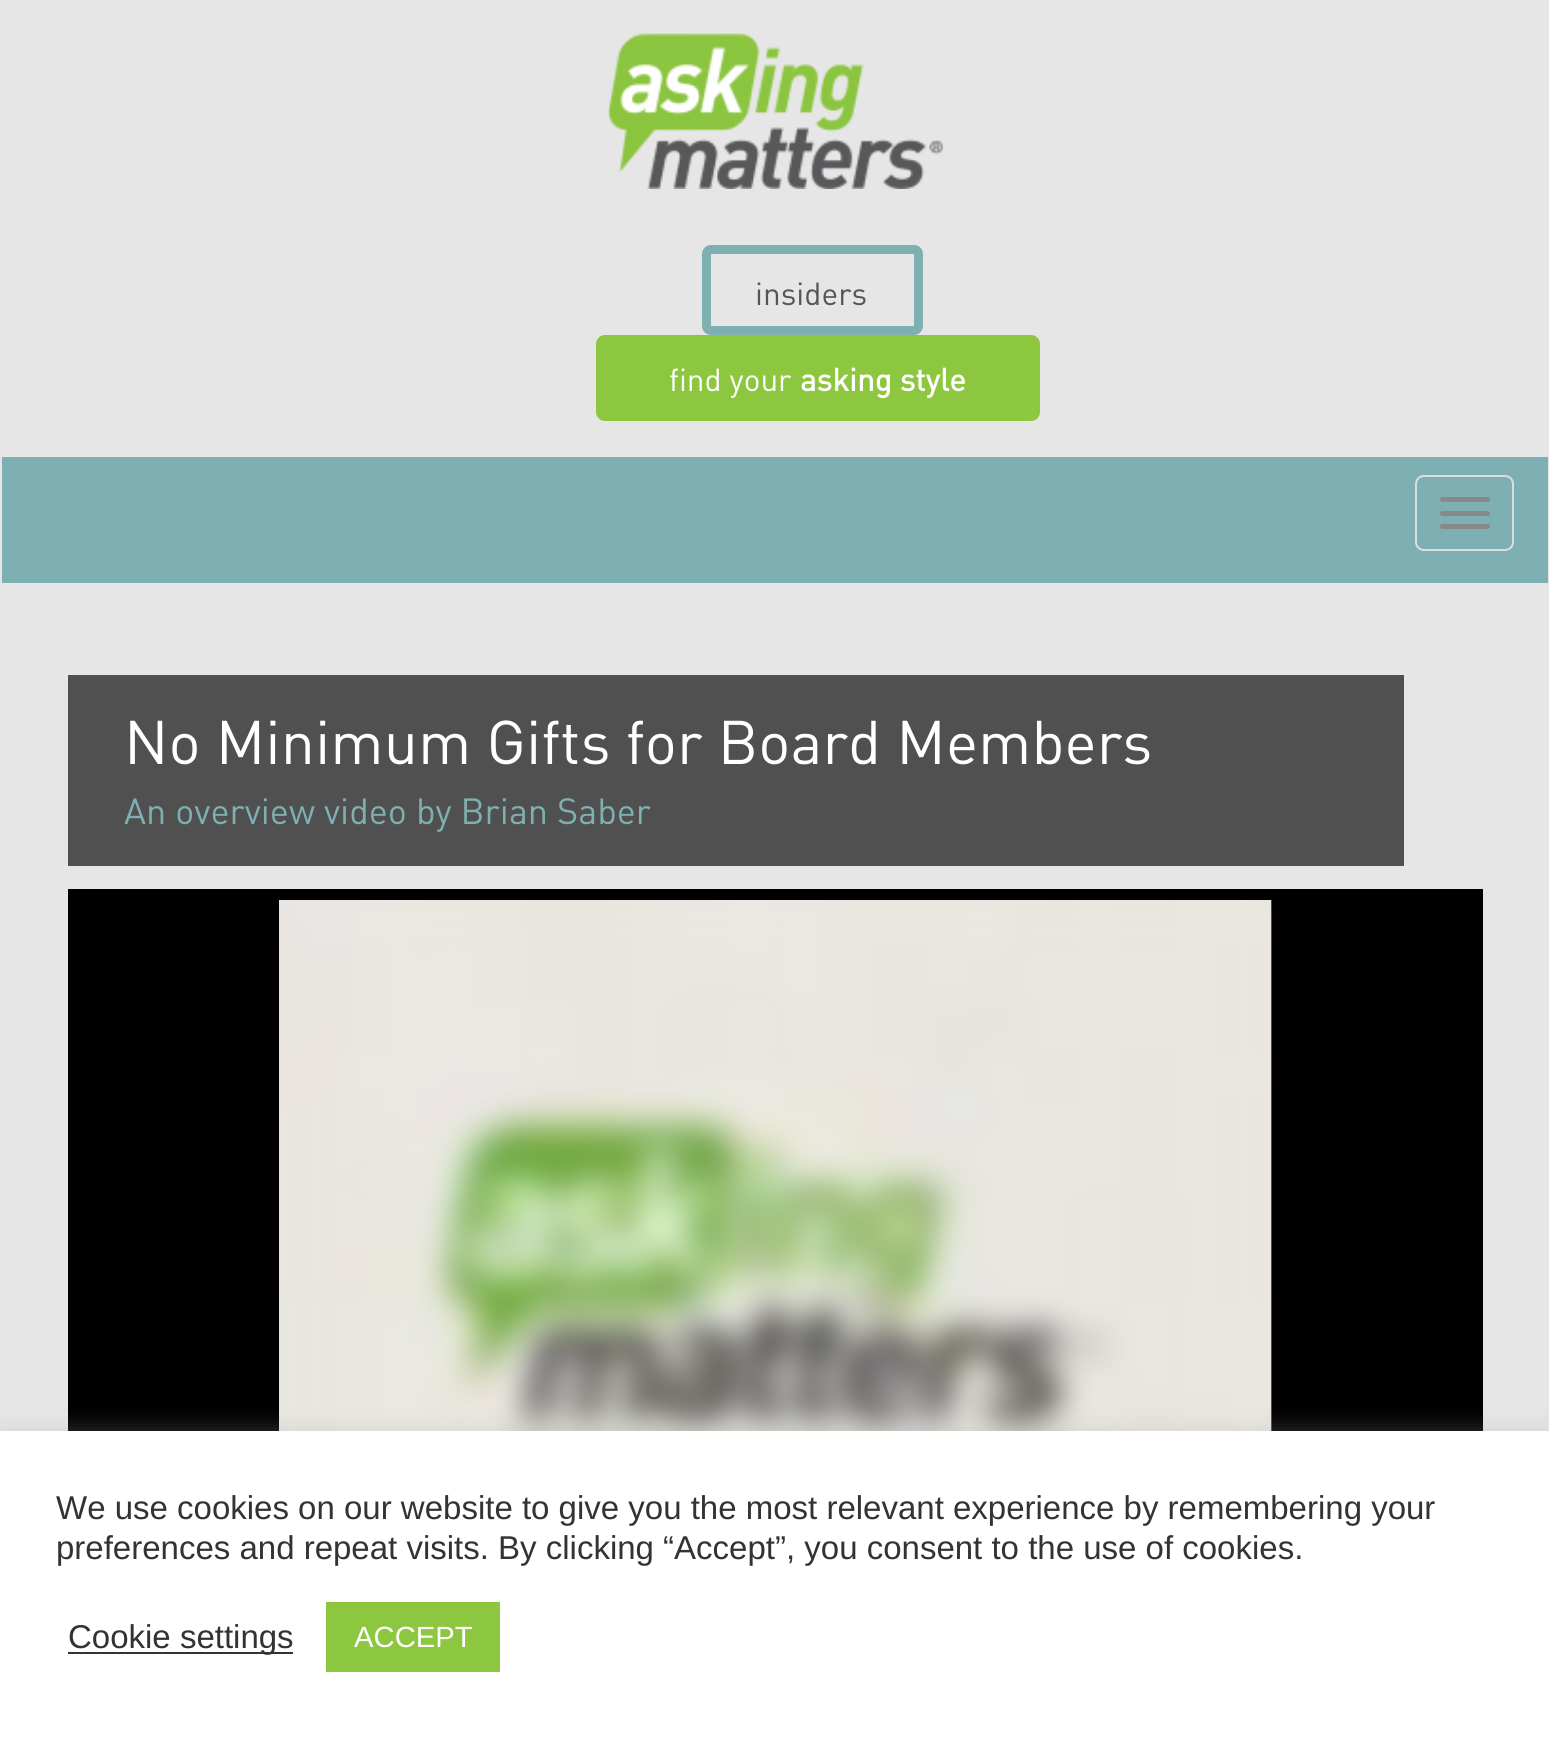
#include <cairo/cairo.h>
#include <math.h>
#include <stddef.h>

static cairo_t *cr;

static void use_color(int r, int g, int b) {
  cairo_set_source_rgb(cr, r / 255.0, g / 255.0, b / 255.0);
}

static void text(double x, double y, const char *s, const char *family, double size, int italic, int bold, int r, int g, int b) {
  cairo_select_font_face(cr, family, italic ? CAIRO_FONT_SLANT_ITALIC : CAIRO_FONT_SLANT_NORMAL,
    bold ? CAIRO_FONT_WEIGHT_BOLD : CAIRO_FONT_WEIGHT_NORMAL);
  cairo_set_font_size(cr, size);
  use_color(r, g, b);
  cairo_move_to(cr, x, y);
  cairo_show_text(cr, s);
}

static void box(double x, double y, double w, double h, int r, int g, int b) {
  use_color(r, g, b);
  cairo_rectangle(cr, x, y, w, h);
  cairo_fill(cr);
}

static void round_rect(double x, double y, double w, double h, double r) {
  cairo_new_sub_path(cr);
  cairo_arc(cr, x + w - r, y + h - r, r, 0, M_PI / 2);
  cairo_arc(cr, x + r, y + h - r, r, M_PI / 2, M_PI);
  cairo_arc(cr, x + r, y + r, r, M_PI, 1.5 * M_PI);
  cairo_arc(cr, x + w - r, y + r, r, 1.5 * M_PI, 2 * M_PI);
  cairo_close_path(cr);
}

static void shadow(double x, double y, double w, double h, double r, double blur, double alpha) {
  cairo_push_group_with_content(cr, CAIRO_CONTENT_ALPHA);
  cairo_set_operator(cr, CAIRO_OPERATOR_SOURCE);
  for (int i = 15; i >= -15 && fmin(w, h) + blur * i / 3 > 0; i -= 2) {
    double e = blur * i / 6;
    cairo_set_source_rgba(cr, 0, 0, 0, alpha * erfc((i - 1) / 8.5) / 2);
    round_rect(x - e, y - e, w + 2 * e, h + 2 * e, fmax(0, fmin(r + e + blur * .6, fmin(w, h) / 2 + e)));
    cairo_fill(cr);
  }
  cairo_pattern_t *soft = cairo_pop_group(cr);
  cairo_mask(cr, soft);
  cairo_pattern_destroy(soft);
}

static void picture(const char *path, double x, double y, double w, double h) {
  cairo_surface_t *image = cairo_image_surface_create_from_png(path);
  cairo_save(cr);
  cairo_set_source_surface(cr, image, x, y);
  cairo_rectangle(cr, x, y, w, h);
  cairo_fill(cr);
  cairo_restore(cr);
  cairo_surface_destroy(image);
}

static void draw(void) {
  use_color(230, 230, 230);
  cairo_paint(cr);
  picture("img_01.png", 607, 33, 336, 156);
  round_rect(706.5, 249.5, 212, 81, 4.5);
  use_color(126, 176, 178);
  cairo_set_line_width(cr, 9);
  cairo_stroke(cr);
  use_color(141, 198, 63);
  round_rect(596, 335, 444, 86, 9);
  cairo_fill(cr);
  box(2, 457, 1546, 126, 126, 175, 179);
  round_rect(1416, 476, 97, 74, 8);
  use_color(221, 221, 221);
  cairo_set_line_width(cr, 2);
  cairo_stroke(cr);
  use_color(136, 136, 136);
  round_rect(1440, 497, 50, 5, 2.5);
  cairo_fill(cr);
  round_rect(1440, 511, 50, 5, 2.5);
  cairo_fill(cr);
  round_rect(1440, 524, 50, 5, 2.5);
  cairo_fill(cr);
  box(68, 675, 1336, 191, 80, 80, 80);
  box(68, 889, 1415, 542, 0, 0, 0);
  picture("img_02.png", 279, 900, 993, 531);
  use_color(172, 171, 171);
  shadow(0, 1429, 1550, 308, 0, 11, 0.3);
  box(0, 1431, 1549, 308, 255, 255, 255);
  box(68, 1652, 225, 2, 51, 51, 51);
  box(326, 1602, 174, 70, 141, 198, 63);
  text(755, 305, "insiders", "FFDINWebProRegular", 31.5, 0, 0, 85, 85, 85);
  text(669, 391, "find your", "FFDINWebProRegular", 31.5, 0, 0, 255, 255, 255);
  text(800, 391, "asking style", "FFDINWebProRegular", 31.5, 0, 1, 255, 255, 255);
  text(124, 764, "No Minimum Gifts for Board Members", "FFDINWebProRegular", 60.75, 0, 0, 255, 255, 255);
  text(124, 824, "An overview video by Brian Saber", "FFDINWebProRegular", 36, 0, 0, 126, 176, 178);
  text(56, 1519, "We use cookies on our website to give you the most relevant experience by remembering your", "Liberation Sans", 33, 0, 0, 51, 51, 51);
  text(56, 1559, "preferences and repeat visits. By clicking “Accept”, you consent to the use of cookies.", "Liberation Sans", 33, 0, 0, 51, 51, 51);
  text(68, 1648, "Cookie settings", "Liberation Sans", 33, 0, 0, 51, 51, 51);
  text(354, 1647, "ACCEPT", "Liberation Sans", 29.25, 0, 0, 255, 255, 255);
}

int main(void) {
  cairo_surface_t *surface = cairo_image_surface_create(CAIRO_FORMAT_RGB24, 1549, 1739);
  cr = cairo_create(surface);
  cairo_font_options_t *options = cairo_font_options_create();
  cairo_font_options_set_hint_metrics(options, CAIRO_HINT_METRICS_OFF);
  cairo_font_options_set_hint_style(options, CAIRO_HINT_STYLE_NONE);
  cairo_set_font_options(cr, options);
  cairo_set_miter_limit(cr, 4);
  draw();
  cairo_surface_write_to_png(surface, "out.png");
  cairo_font_options_destroy(options);
  cairo_destroy(cr);
  cairo_surface_destroy(surface);
  return 0;
}
